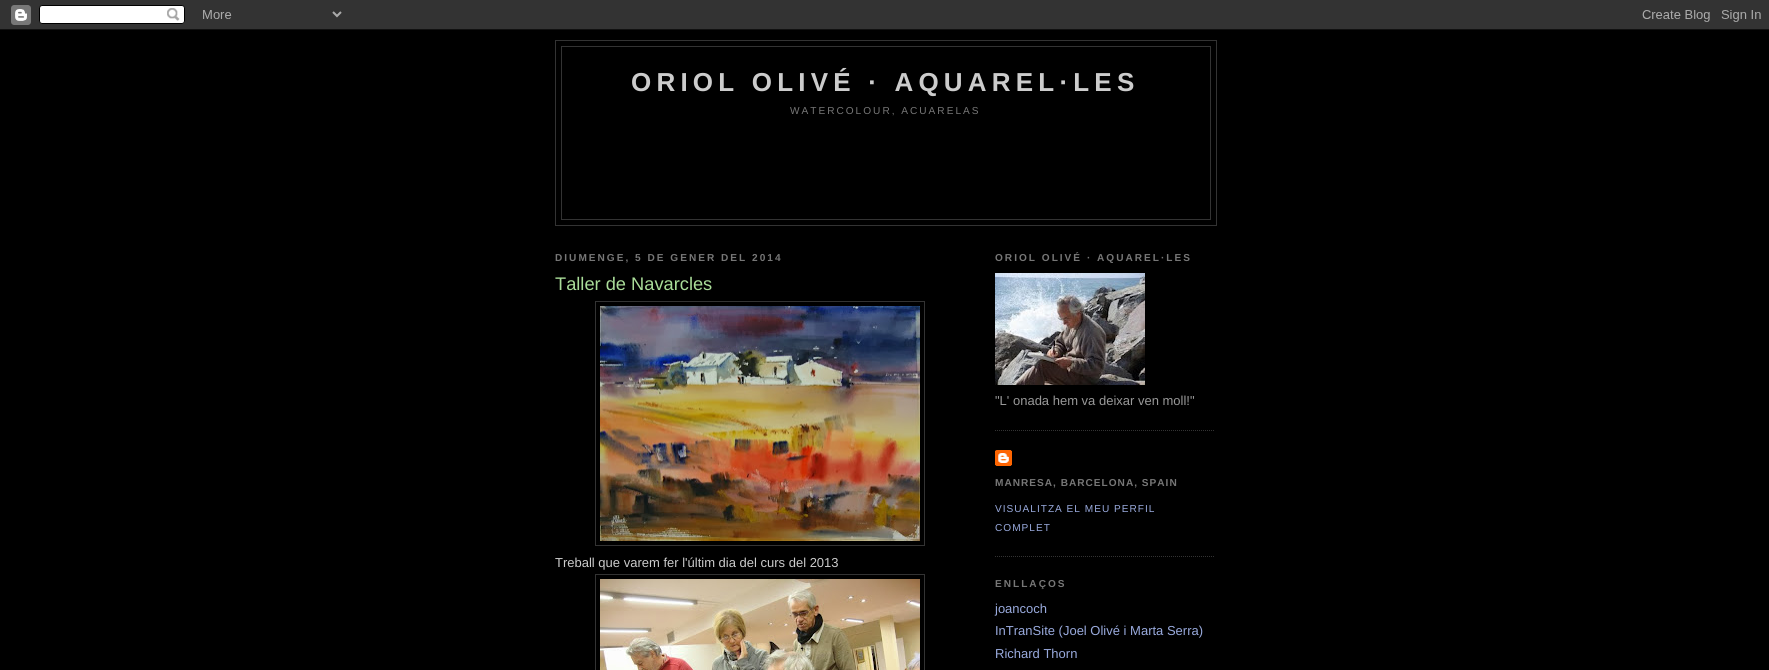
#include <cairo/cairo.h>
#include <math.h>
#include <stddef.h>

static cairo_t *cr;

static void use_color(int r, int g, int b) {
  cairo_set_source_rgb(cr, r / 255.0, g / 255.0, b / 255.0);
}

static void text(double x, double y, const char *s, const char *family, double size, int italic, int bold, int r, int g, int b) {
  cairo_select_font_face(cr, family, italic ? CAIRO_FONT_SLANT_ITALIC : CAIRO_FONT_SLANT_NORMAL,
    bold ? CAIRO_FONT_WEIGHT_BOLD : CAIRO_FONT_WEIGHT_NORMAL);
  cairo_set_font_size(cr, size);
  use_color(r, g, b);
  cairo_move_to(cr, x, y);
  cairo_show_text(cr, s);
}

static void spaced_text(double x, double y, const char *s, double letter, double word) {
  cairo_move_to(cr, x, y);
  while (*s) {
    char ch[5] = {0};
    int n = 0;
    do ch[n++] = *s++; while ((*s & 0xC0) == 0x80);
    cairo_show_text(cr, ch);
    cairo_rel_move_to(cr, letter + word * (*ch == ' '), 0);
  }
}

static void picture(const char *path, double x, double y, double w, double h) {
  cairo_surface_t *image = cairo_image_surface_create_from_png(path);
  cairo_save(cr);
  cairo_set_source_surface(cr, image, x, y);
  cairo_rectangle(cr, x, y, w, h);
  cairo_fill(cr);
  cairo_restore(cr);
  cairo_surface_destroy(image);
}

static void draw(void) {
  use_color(0, 0, 0);
  cairo_paint(cr);
  picture("img_01.png", 0, 0, 1769, 30);
  cairo_rectangle(cr, 555.5, 40.5, 661, 185);
  use_color(51, 51, 51);
  cairo_set_line_width(cr, 1);
  cairo_stroke(cr);
  cairo_rectangle(cr, 561.5, 46.5, 649, 173);
  cairo_stroke(cr);
  cairo_rectangle(cr, 595.5, 301.5, 329, 244);
  cairo_stroke(cr);
  picture("img_02.png", 600, 306, 320, 235);
  cairo_rectangle(cr, 595.5, 574.5, 329, 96);
  cairo_stroke(cr);
  picture("img_03.png", 600, 579, 320, 91);
  cairo_new_path(cr);
  cairo_move_to(cr, 995, 430.5);
  cairo_line_to(cr, 1215, 430.5);
  cairo_set_dash(cr, (double[]){1, 1}, 2, 0);
  cairo_stroke(cr);
  picture("img_04.png", 995, 273, 150, 112);
  cairo_new_path(cr);
  cairo_move_to(cr, 995, 556.5);
  cairo_line_to(cr, 1215, 556.5);
  cairo_stroke(cr);
  picture("img_05.png", 995, 450, 17, 16);
  cairo_select_font_face(cr, "Liberation Sans", CAIRO_FONT_SLANT_NORMAL, CAIRO_FONT_WEIGHT_BOLD);
  cairo_set_font_size(cr, 26);
  use_color(204, 204, 204);
  spaced_text(631, 91, "ORIOL OLIVÉ · AQUAREL·LES", 5.2, 0);
  cairo_select_font_face(cr, "Liberation Sans", CAIRO_FONT_SLANT_NORMAL, CAIRO_FONT_WEIGHT_NORMAL);
  cairo_set_font_size(cr, 10.1);
  use_color(119, 119, 119);
  spaced_text(790, 114, "WATERCOLOUR, ACUARELAS", 2, 0);
  cairo_select_font_face(cr, "Liberation Sans", CAIRO_FONT_SLANT_NORMAL, CAIRO_FONT_WEIGHT_BOLD);
  spaced_text(555, 261, "DIUMENGE, 5 DE GENER DEL 2014", 2, 0);
  text(555, 290, "Taller de Navarcles", "Liberation Sans", 18.25, 0, 0, 170, 221, 153);
  text(555, 567, "Treball que varem fer l'últim dia del curs del 2013", "Liberation Sans", 13, 0, 0, 204, 204, 204);
  cairo_select_font_face(cr, "Liberation Sans", CAIRO_FONT_SLANT_NORMAL, CAIRO_FONT_WEIGHT_BOLD);
  cairo_set_font_size(cr, 10.1);
  use_color(119, 119, 119);
  spaced_text(995, 261, "ORIOL OLIVÉ · AQUAREL·LES", 2, 0);
  text(995, 405, "\"L' onada hem va deixar ven moll!\"", "Liberation Sans", 13, 0, 0, 153, 153, 153);
  cairo_select_font_face(cr, "Liberation Sans", CAIRO_FONT_SLANT_NORMAL, CAIRO_FONT_WEIGHT_BOLD);
  cairo_set_font_size(cr, 10.1);
  use_color(119, 119, 119);
  spaced_text(995, 486, "MANRESA, BARCELONA, SPAIN", 1, 0);
  cairo_select_font_face(cr, "Liberation Sans", CAIRO_FONT_SLANT_NORMAL, CAIRO_FONT_WEIGHT_NORMAL);
  use_color(153, 170, 221);
  spaced_text(995, 512, "VISUALITZA EL MEU PERFIL", 1, 0);
  spaced_text(995, 531, "COMPLET", 1, 0);
  cairo_select_font_face(cr, "Liberation Sans", CAIRO_FONT_SLANT_NORMAL, CAIRO_FONT_WEIGHT_BOLD);
  use_color(119, 119, 119);
  spaced_text(995, 587, "ENLLAÇOS", 2, 0);
  text(995, 613, "joancoch", "Liberation Sans", 13, 0, 0, 153, 170, 221);
  text(995, 635, "InTranSite (Joel Olivé i Marta Serra)", "Liberation Sans", 13, 0, 0, 153, 170, 221);
  text(995, 658, "Richard Thorn", "Liberation Sans", 13, 0, 0, 153, 170, 221);
}

int main(void) {
  cairo_surface_t *surface = cairo_image_surface_create(CAIRO_FORMAT_RGB24, 1769, 670);
  cr = cairo_create(surface);
  cairo_font_options_t *options = cairo_font_options_create();
  cairo_font_options_set_hint_metrics(options, CAIRO_HINT_METRICS_OFF);
  cairo_font_options_set_hint_style(options, CAIRO_HINT_STYLE_NONE);
  cairo_set_font_options(cr, options);
  cairo_set_miter_limit(cr, 4);
  draw();
  cairo_surface_write_to_png(surface, "out.png");
  cairo_font_options_destroy(options);
  cairo_destroy(cr);
  cairo_surface_destroy(surface);
  return 0;
}
